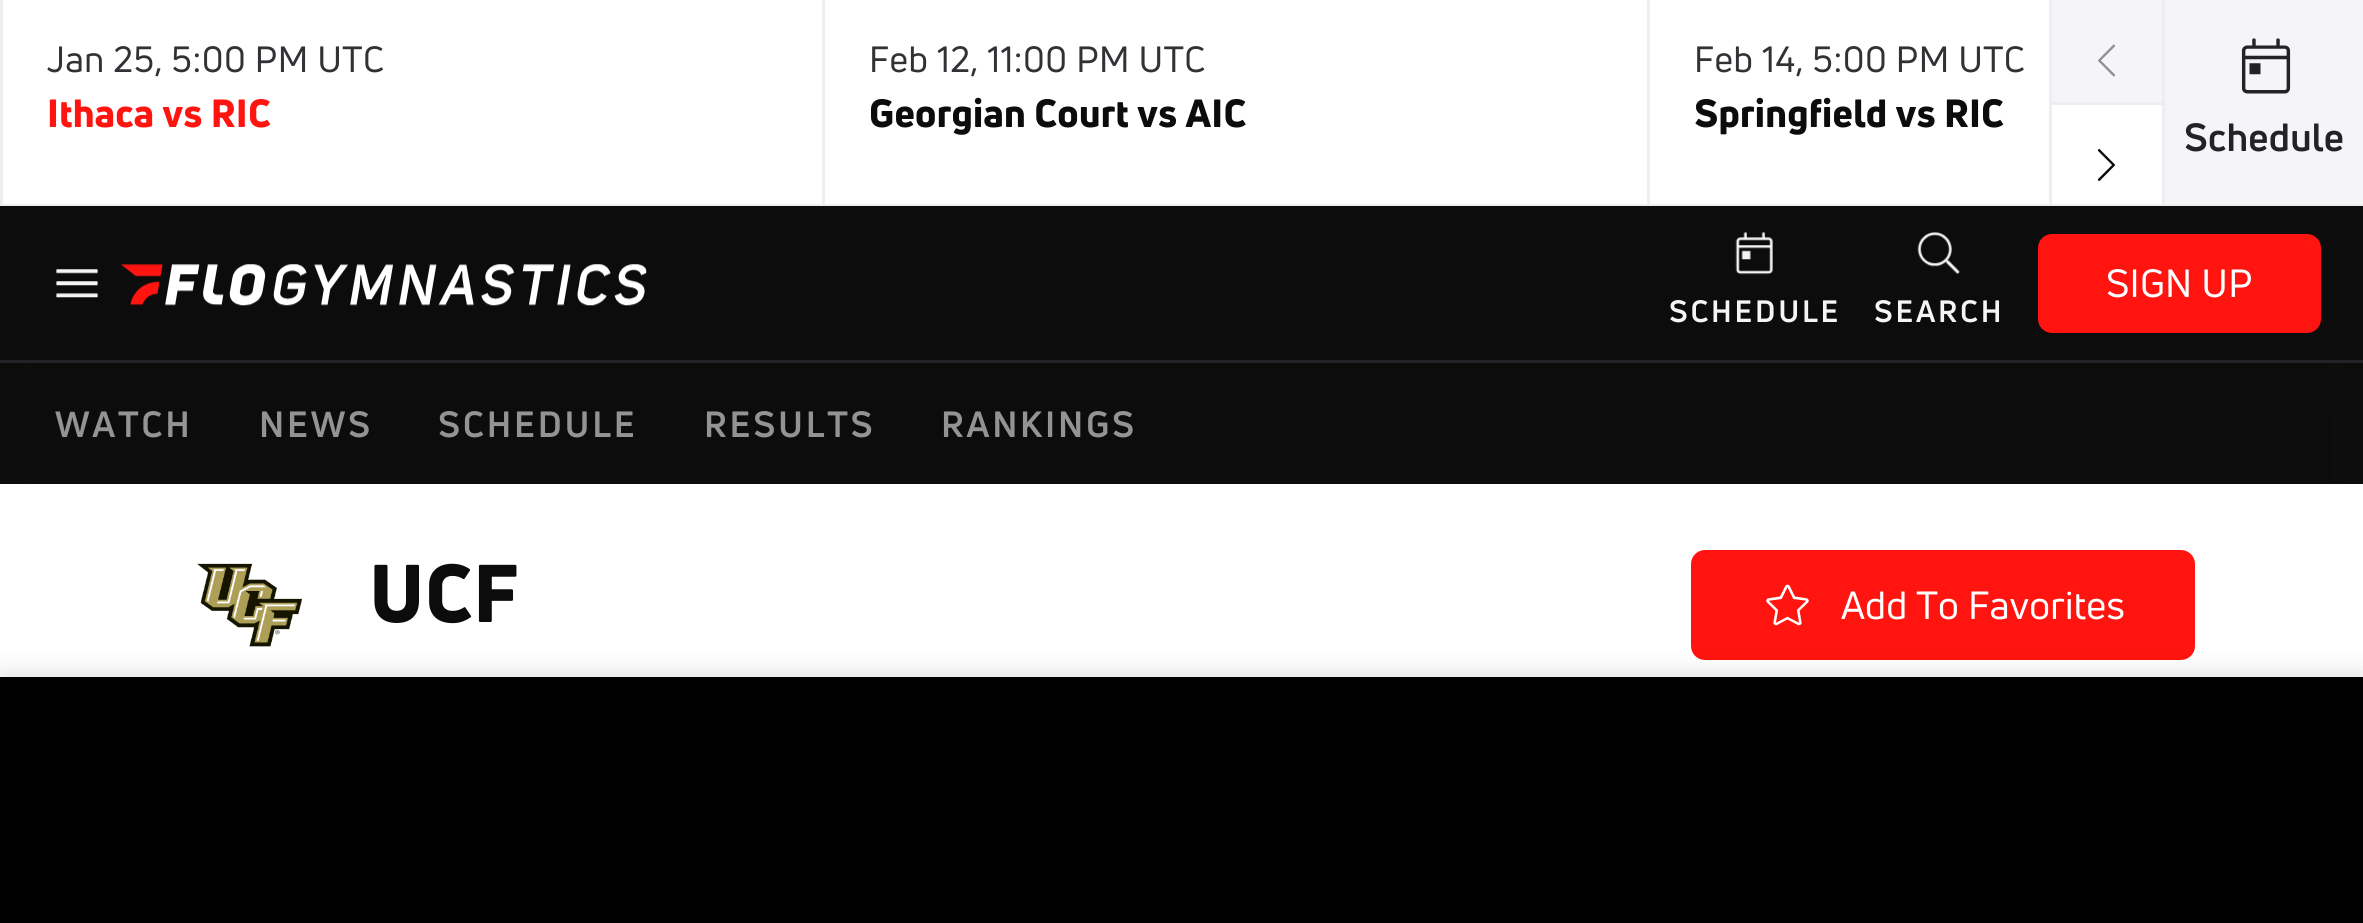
#include <cairo/cairo.h>
#include <math.h>
#include <stddef.h>

static cairo_t *cr;

static void use_color(int r, int g, int b) {
  cairo_set_source_rgb(cr, r / 255.0, g / 255.0, b / 255.0);
}

static void spaced_text(double x, double y, const char *s, double letter, double word) {
  cairo_move_to(cr, x, y);
  while (*s) {
    char ch[5] = {0};
    int n = 0;
    do ch[n++] = *s++; while ((*s & 0xC0) == 0x80);
    cairo_show_text(cr, ch);
    cairo_rel_move_to(cr, letter + word * (*ch == ' '), 0);
  }
}

static void box(double x, double y, double w, double h, int r, int g, int b) {
  use_color(r, g, b);
  cairo_rectangle(cr, x, y, w, h);
  cairo_fill(cr);
}

static void round_rect(double x, double y, double w, double h, double r) {
  cairo_new_sub_path(cr);
  cairo_arc(cr, x + w - r, y + h - r, r, 0, M_PI / 2);
  cairo_arc(cr, x + r, y + h - r, r, M_PI / 2, M_PI);
  cairo_arc(cr, x + r, y + r, r, M_PI, 1.5 * M_PI);
  cairo_arc(cr, x + w - r, y + r, r, 1.5 * M_PI, 2 * M_PI);
  cairo_close_path(cr);
}

static void shadow(double x, double y, double w, double h, double r, double blur, double alpha) {
  cairo_push_group_with_content(cr, CAIRO_CONTENT_ALPHA);
  cairo_set_operator(cr, CAIRO_OPERATOR_SOURCE);
  for (int i = 15; i >= -15 && fmin(w, h) + blur * i / 3 > 0; i -= 2) {
    double e = blur * i / 6;
    cairo_set_source_rgba(cr, 0, 0, 0, alpha * erfc((i - 1) / 8.5) / 2);
    round_rect(x - e, y - e, w + 2 * e, h + 2 * e, fmax(0, fmin(r + e + blur * .6, fmin(w, h) / 2 + e)));
    cairo_fill(cr);
  }
  cairo_pattern_t *soft = cairo_pop_group(cr);
  cairo_mask(cr, soft);
  cairo_pattern_destroy(soft);
}

static void picture(const char *path, double x, double y, double w, double h) {
  cairo_surface_t *image = cairo_image_surface_create_from_png(path);
  cairo_save(cr);
  cairo_set_source_surface(cr, image, x, y);
  cairo_rectangle(cr, x, y, w, h);
  cairo_fill(cr);
  cairo_restore(cr);
  cairo_surface_destroy(image);
}

static void draw(void) {
  cairo_pattern_t *gradient;
  use_color(238, 238, 240);
  cairo_paint(cr);
  box(3, 0, 2159, 204, 255, 255, 255);
  box(822, 0, 3, 204, 238, 238, 240);
  box(1647, 0, 3, 204, 238, 238, 240);
  box(2049, 0, 3, 204, 238, 238, 240);
  box(2052, 0, 110, 102, 245, 245, 247);
  picture("img_01.png", 2097, 44, 19, 33);
  box(2052, 102, 110, 3, 238, 238, 240);
  picture("img_02.png", 2097, 149, 18, 32);
  box(2165, 0, 198, 204, 245, 245, 247);
  picture("img_03.png", 2241, 38, 50, 56);
  box(0, 206, 2363, 278, 12, 12, 12);
  picture("img_04.png", 56, 269, 42, 29);
  picture("img_05.png", 121, 264, 526, 42);
  use_color(255, 20, 15);
  round_rect(2039.5, 235.5, 280, 96, 12.5);
  cairo_fill_preserve(cr);
  cairo_set_line_width(cr, 3);
  cairo_stroke(cr);
  picture("img_06.png", 1735, 232, 38, 43);
  picture("img_07.png", 1917, 232, 43, 43);
  gradient = cairo_pattern_create_linear(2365, 424, 2332, 424);
  cairo_pattern_add_color_stop_rgba(gradient, 0, 0.361, 0.361, 0.361, 1);
  cairo_pattern_add_color_stop_rgba(gradient, 1, 0.047, 0.047, 0.047, 1);
  cairo_set_source(cr, gradient);
  cairo_pattern_destroy(gradient);
  cairo_rectangle(cr, 2333, 363, 8, 121);
  cairo_fill(cr);
  gradient = cairo_pattern_create_linear(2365, 424, 0, 423);
  cairo_pattern_add_color_stop_rgba(gradient, 0, 0.047, 0.047, 0.047, 1);
  cairo_pattern_add_color_stop_rgba(gradient, 0.01, 0.047, 0.047, 0.047, 1);
  cairo_pattern_add_color_stop_rgba(gradient, 0.03, 0.047, 0.047, 0.047, 0);
  cairo_set_source(cr, gradient);
  cairo_pattern_destroy(gradient);
  cairo_rectangle(cr, 2333, 363, 8, 121);
  cairo_fill(cr);
  gradient = cairo_pattern_create_linear(0, 424, 33, 424);
  cairo_pattern_add_color_stop_rgba(gradient, 0, 0.361, 0.361, 0.361, 1);
  cairo_pattern_add_color_stop_rgba(gradient, 1, 0.047, 0.047, 0.047, 1);
  cairo_set_source(cr, gradient);
  cairo_pattern_destroy(gradient);
  cairo_rectangle(cr, 24, 363, 8, 121);
  cairo_fill(cr);
  gradient = cairo_pattern_create_linear(0, 424, 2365, 423);
  cairo_pattern_add_color_stop_rgba(gradient, 0, 0.047, 0.047, 0.047, 1);
  cairo_pattern_add_color_stop_rgba(gradient, 0.01, 0.047, 0.047, 0.047, 1);
  cairo_pattern_add_color_stop_rgba(gradient, 0.03, 0.047, 0.047, 0.047, 0);
  cairo_set_source(cr, gradient);
  cairo_pattern_destroy(gradient);
  cairo_rectangle(cr, 24, 363, 8, 121);
  cairo_fill(cr);
  box(0, 360, 2363, 3, 35, 35, 39);
  box(0, 484, 2363, 193, 255, 255, 255);
  picture("img_08.png", 197, 563, 105, 84);
  use_color(255, 20, 15);
  round_rect(1692.5, 551.5, 501, 107, 12.5);
  cairo_fill_preserve(cr);
  cairo_stroke(cr);
  picture("img_09.png", 1766, 584, 43, 42);
  use_color(0, 0, 0);
  shadow(0, 671, 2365, 248, 0, 11, 0.1);
  box(0, 677, 2363, 246, 0, 0, 0);
  cairo_select_font_face(cr, "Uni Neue", CAIRO_FONT_SLANT_NORMAL, CAIRO_FONT_WEIGHT_NORMAL);
  cairo_set_font_size(cr, 35.75);
  use_color(50, 50, 54);
  spaced_text(47, 72, "Jan 25, 5:00 PM UTC", 0.5, 0);
  cairo_select_font_face(cr, "Uni Neue Black", CAIRO_FONT_SLANT_NORMAL, CAIRO_FONT_WEIGHT_NORMAL);
  cairo_set_font_size(cr, 38.5);
  use_color(255, 20, 15);
  spaced_text(47, 127, "Ithaca vs RIC", 0.25, 0);
  cairo_select_font_face(cr, "Uni Neue", CAIRO_FONT_SLANT_NORMAL, CAIRO_FONT_WEIGHT_NORMAL);
  cairo_set_font_size(cr, 35.75);
  use_color(50, 50, 54);
  spaced_text(869, 72, "Feb 12, 11:00 PM UTC", 0.5, 0);
  cairo_select_font_face(cr, "Uni Neue Black", CAIRO_FONT_SLANT_NORMAL, CAIRO_FONT_WEIGHT_NORMAL);
  cairo_set_font_size(cr, 38.5);
  use_color(12, 12, 12);
  spaced_text(869, 127, "Georgian Court vs AIC", 0.25, 0);
  cairo_select_font_face(cr, "Uni Neue", CAIRO_FONT_SLANT_NORMAL, CAIRO_FONT_WEIGHT_NORMAL);
  cairo_set_font_size(cr, 35.75);
  use_color(50, 50, 54);
  spaced_text(1694, 72, "Feb 14, 5:00 PM UTC", 0.5, 0);
  cairo_select_font_face(cr, "Uni Neue Black", CAIRO_FONT_SLANT_NORMAL, CAIRO_FONT_WEIGHT_NORMAL);
  cairo_set_font_size(cr, 38.5);
  use_color(12, 12, 12);
  spaced_text(1694, 127, "Springfield vs RIC", 0.25, 0);
  cairo_select_font_face(cr, "Uni Neue", CAIRO_FONT_SLANT_NORMAL, CAIRO_FONT_WEIGHT_BOLD);
  use_color(35, 35, 39);
  spaced_text(2184, 151, "Schedule", 0.25, 0);
  cairo_select_font_face(cr, "Uni Neue", CAIRO_FONT_SLANT_NORMAL, CAIRO_FONT_WEIGHT_NORMAL);
  use_color(255, 255, 255);
  spaced_text(2106, 297, "SIGN UP", 0.25, 0);
  cairo_select_font_face(cr, "Uni Neue", CAIRO_FONT_SLANT_NORMAL, CAIRO_FONT_WEIGHT_BOLD);
  cairo_set_font_size(cr, 30.25);
  use_color(245, 245, 247);
  spaced_text(1669, 322, "SCHEDULE", 2.75, 0);
  spaced_text(1874, 322, "SEARCH", 2.75, 0);
  cairo_set_font_size(cr, 35.75);
  use_color(147, 147, 150);
  spaced_text(55, 437, "WATCH", 2.75, 0);
  spaced_text(259, 437, "NEWS", 2.75, 0);
  spaced_text(438, 437, "SCHEDULE", 2.75, 0);
  spaced_text(704, 437, "RESULTS", 2.75, 0);
  spaced_text(941, 437, "RANKINGS", 2.75, 0);
  cairo_select_font_face(cr, "Uni Neue Black", CAIRO_FONT_SLANT_NORMAL, CAIRO_FONT_WEIGHT_NORMAL);
  cairo_set_font_size(cr, 80);
  use_color(12, 12, 12);
  spaced_text(369, 622, "UCF", 0.5, 0);
  cairo_select_font_face(cr, "Uni Neue", CAIRO_FONT_SLANT_NORMAL, CAIRO_FONT_WEIGHT_NORMAL);
  cairo_set_font_size(cr, 38.5);
  use_color(255, 255, 255);
  spaced_text(1841, 619, "Add To Favorites", 0.25, 0);
}

int main(void) {
  cairo_surface_t *surface = cairo_image_surface_create(CAIRO_FORMAT_RGB24, 2363, 923);
  cr = cairo_create(surface);
  cairo_font_options_t *options = cairo_font_options_create();
  cairo_font_options_set_hint_metrics(options, CAIRO_HINT_METRICS_OFF);
  cairo_font_options_set_hint_style(options, CAIRO_HINT_STYLE_NONE);
  cairo_set_font_options(cr, options);
  cairo_set_miter_limit(cr, 4);
  draw();
  cairo_surface_write_to_png(surface, "out.png");
  cairo_font_options_destroy(options);
  cairo_destroy(cr);
  cairo_surface_destroy(surface);
  return 0;
}
